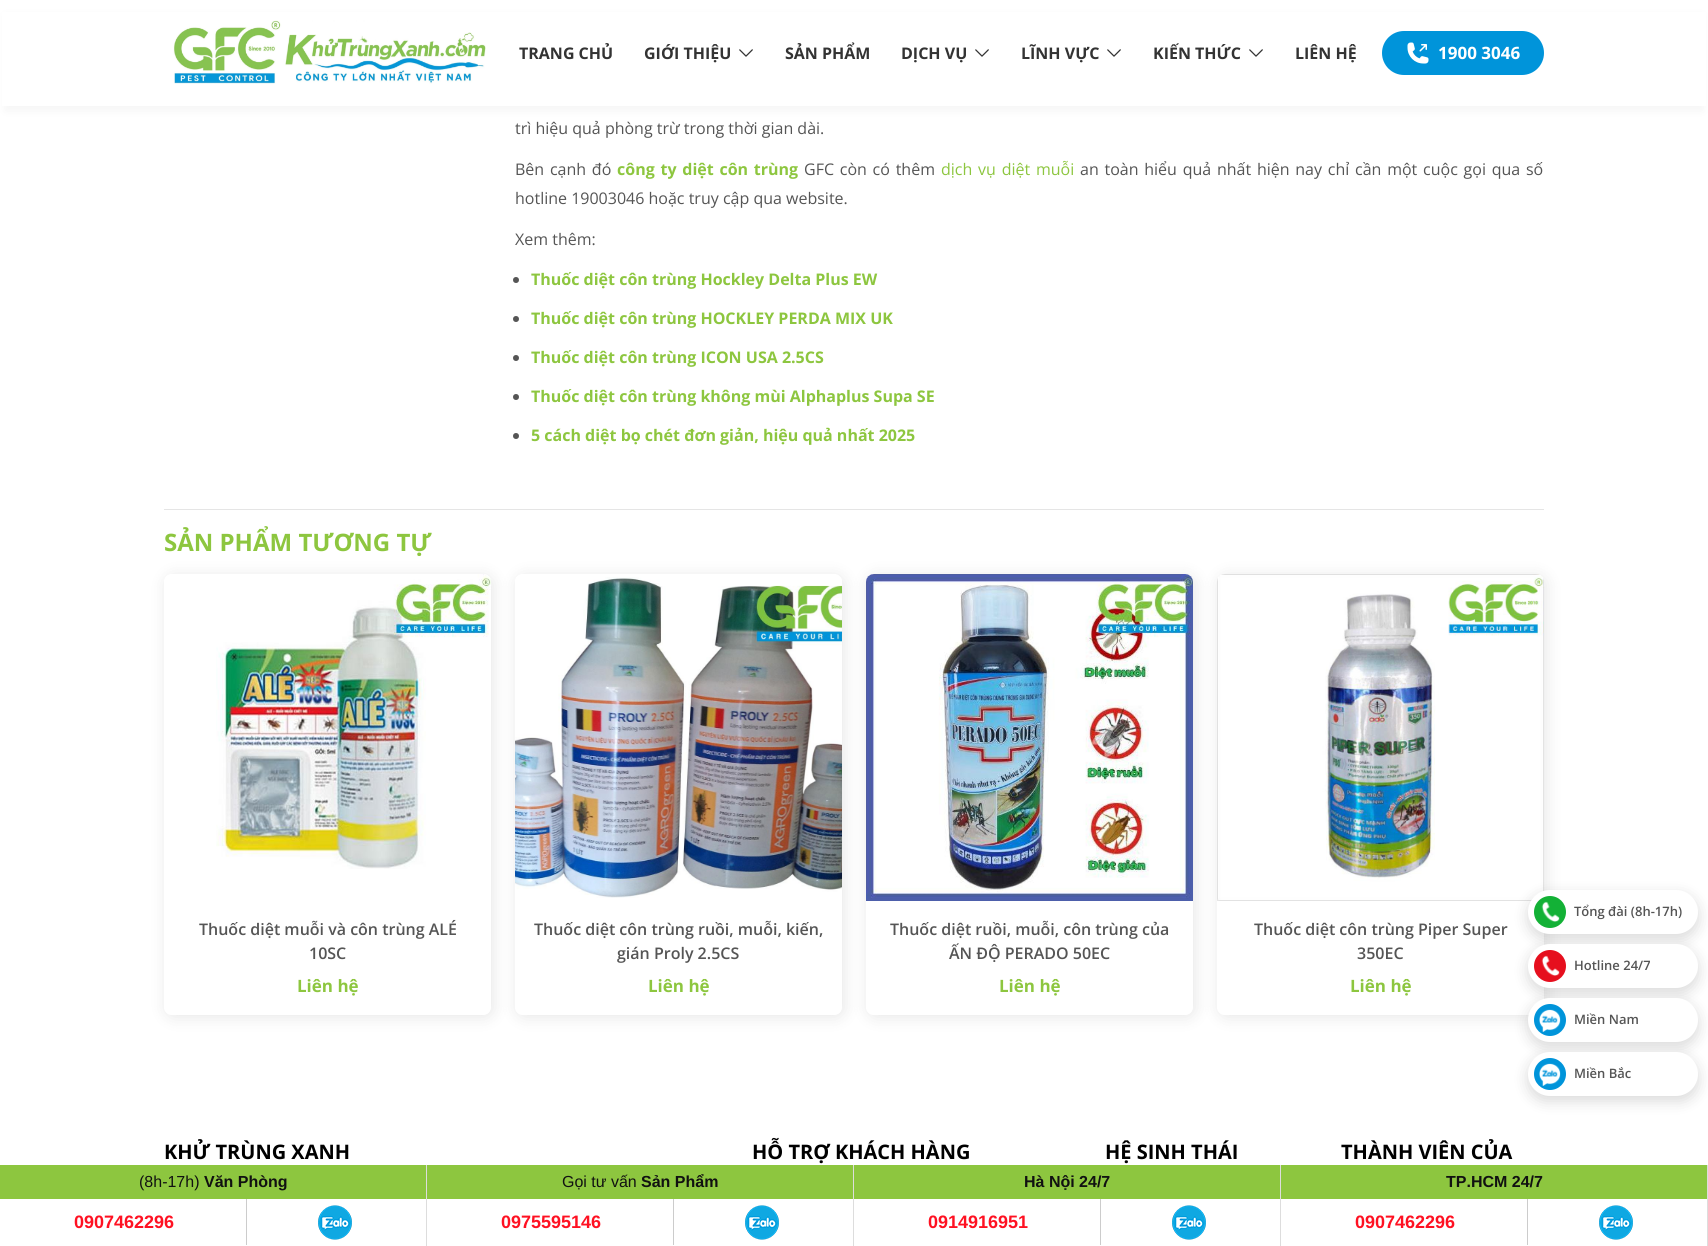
#include <cairo/cairo.h>
#include <math.h>
#include <stddef.h>

static cairo_t *cr;

static void use_color(int r, int g, int b) {
  cairo_set_source_rgb(cr, r / 255.0, g / 255.0, b / 255.0);
}

static void text(double x, double y, const char *s, const char *family, double size, int italic, int bold, int r, int g, int b) {
  cairo_select_font_face(cr, family, italic ? CAIRO_FONT_SLANT_ITALIC : CAIRO_FONT_SLANT_NORMAL,
    bold ? CAIRO_FONT_WEIGHT_BOLD : CAIRO_FONT_WEIGHT_NORMAL);
  cairo_set_font_size(cr, size);
  use_color(r, g, b);
  cairo_move_to(cr, x, y);
  cairo_show_text(cr, s);
}

static void spaced_text(double x, double y, const char *s, double letter, double word) {
  cairo_move_to(cr, x, y);
  while (*s) {
    char ch[5] = {0};
    int n = 0;
    do ch[n++] = *s++; while ((*s & 0xC0) == 0x80);
    cairo_show_text(cr, ch);
    cairo_rel_move_to(cr, letter + word * (*ch == ' '), 0);
  }
}

static void box(double x, double y, double w, double h, int r, int g, int b) {
  use_color(r, g, b);
  cairo_rectangle(cr, x, y, w, h);
  cairo_fill(cr);
}

static void round_rect(double x, double y, double w, double h, double r) {
  cairo_new_sub_path(cr);
  cairo_arc(cr, x + w - r, y + h - r, r, 0, M_PI / 2);
  cairo_arc(cr, x + r, y + h - r, r, M_PI / 2, M_PI);
  cairo_arc(cr, x + r, y + r, r, M_PI, 1.5 * M_PI);
  cairo_arc(cr, x + w - r, y + r, r, 1.5 * M_PI, 2 * M_PI);
  cairo_close_path(cr);
}

static void shadow(double x, double y, double w, double h, double r, double blur, double alpha) {
  cairo_push_group_with_content(cr, CAIRO_CONTENT_ALPHA);
  cairo_set_operator(cr, CAIRO_OPERATOR_SOURCE);
  for (int i = 15; i >= -15 && fmin(w, h) + blur * i / 3 > 0; i -= 2) {
    double e = blur * i / 6;
    cairo_set_source_rgba(cr, 0, 0, 0, alpha * erfc((i - 1) / 8.5) / 2);
    round_rect(x - e, y - e, w + 2 * e, h + 2 * e, fmax(0, fmin(r + e + blur * .6, fmin(w, h) / 2 + e)));
    cairo_fill(cr);
  }
  cairo_pattern_t *soft = cairo_pop_group(cr);
  cairo_mask(cr, soft);
  cairo_pattern_destroy(soft);
}

static void picture(const char *path, double x, double y, double w, double h) {
  cairo_surface_t *image = cairo_image_surface_create_from_png(path);
  cairo_save(cr);
  cairo_set_source_surface(cr, image, x, y);
  cairo_rectangle(cr, x, y, w, h);
  cairo_fill(cr);
  cairo_restore(cr);
  cairo_surface_destroy(image);
}

static void draw(void) {
  use_color(255, 255, 255);
  cairo_paint(cr);
  use_color(0, 0, 0);
  shadow(5, 15, 1698, 96, 0, 5, 0.04);
  box(2, 12, 1704, 94, 255, 255, 255);
  picture("img_01.png", 173, 20, 313, 64);
  picture("img_02.png", 739, 49, 14, 8);
  picture("img_02.png", 975, 49, 14, 8);
  picture("img_02.png", 1107, 49, 14, 8);
  picture("img_02.png", 1249, 49, 14, 8);
  use_color(0, 148, 218);
  round_rect(1382, 31, 162, 44, 22);
  cairo_fill(cr);
  picture("img_03.png", 1407, 42, 22, 22);
  use_color(85, 85, 85);
  cairo_arc(cr, 516, 280, 3, 0, 2 * M_PI);
  cairo_fill(cr);
  cairo_arc(cr, 516, 319, 3, 0, 2 * M_PI);
  cairo_fill(cr);
  cairo_arc(cr, 516, 358, 3, 0, 2 * M_PI);
  cairo_fill(cr);
  cairo_arc(cr, 516, 397, 3, 0, 2 * M_PI);
  cairo_fill(cr);
  cairo_arc(cr, 516, 436, 3, 0, 2 * M_PI);
  cairo_fill(cr);
  box(164, 509, 1380, 1, 229, 229, 229);
  cairo_save(cr);
  cairo_set_fill_rule(cr, CAIRO_FILL_RULE_EVEN_ODD);
  cairo_new_path(cr);
  cairo_move_to(cr, 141, 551);
  cairo_line_to(cr, 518, 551);
  cairo_line_to(cr, 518, 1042);
  cairo_line_to(cr, 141, 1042);
  cairo_close_path(cr);
  cairo_move_to(cr, 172, 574);
  cairo_line_to(cr, 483, 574);
  cairo_curve_to(cr, 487.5, 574, 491, 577.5, 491, 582);
  cairo_line_to(cr, 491, 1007);
  cairo_curve_to(cr, 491, 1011.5, 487.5, 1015, 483, 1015);
  cairo_line_to(cr, 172, 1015);
  cairo_curve_to(cr, 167.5, 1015, 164, 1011.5, 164, 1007);
  cairo_line_to(cr, 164, 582);
  cairo_curve_to(cr, 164, 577.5, 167.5, 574, 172, 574);
  cairo_close_path(cr);
  cairo_clip(cr);
  use_color(0, 0, 0);
  shadow(166, 576, 327, 441, 8, 8, 0.1);
  cairo_restore(cr);
  picture("img_04.png", 216, 574, 275, 295);
  cairo_save(cr);
  cairo_set_fill_rule(cr, CAIRO_FILL_RULE_EVEN_ODD);
  cairo_new_path(cr);
  cairo_move_to(cr, 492, 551);
  cairo_line_to(cr, 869, 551);
  cairo_line_to(cr, 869, 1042);
  cairo_line_to(cr, 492, 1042);
  cairo_close_path(cr);
  cairo_move_to(cr, 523, 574);
  cairo_line_to(cr, 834, 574);
  cairo_curve_to(cr, 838.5, 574, 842, 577.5, 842, 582);
  cairo_line_to(cr, 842, 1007);
  cairo_curve_to(cr, 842, 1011.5, 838.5, 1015, 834, 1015);
  cairo_line_to(cr, 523, 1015);
  cairo_curve_to(cr, 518.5, 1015, 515, 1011.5, 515, 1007);
  cairo_line_to(cr, 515, 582);
  cairo_curve_to(cr, 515, 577.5, 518.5, 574, 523, 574);
  cairo_close_path(cr);
  cairo_clip(cr);
  use_color(0, 0, 0);
  shadow(517, 576, 327, 441, 8, 8, 0.1);
  cairo_restore(cr);
  picture("img_05.png", 515, 577, 327, 321);
  cairo_save(cr);
  cairo_set_fill_rule(cr, CAIRO_FILL_RULE_EVEN_ODD);
  cairo_new_path(cr);
  cairo_move_to(cr, 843, 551);
  cairo_line_to(cr, 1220, 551);
  cairo_line_to(cr, 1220, 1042);
  cairo_line_to(cr, 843, 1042);
  cairo_close_path(cr);
  cairo_move_to(cr, 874, 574);
  cairo_line_to(cr, 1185, 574);
  cairo_curve_to(cr, 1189.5, 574, 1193, 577.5, 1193, 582);
  cairo_line_to(cr, 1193, 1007);
  cairo_curve_to(cr, 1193, 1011.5, 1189.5, 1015, 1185, 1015);
  cairo_line_to(cr, 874, 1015);
  cairo_curve_to(cr, 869.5, 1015, 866, 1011.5, 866, 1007);
  cairo_line_to(cr, 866, 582);
  cairo_curve_to(cr, 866, 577.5, 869.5, 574, 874, 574);
  cairo_close_path(cr);
  cairo_clip(cr);
  use_color(0, 0, 0);
  shadow(868, 576, 327, 441, 8, 8, 0.1);
  cairo_restore(cr);
  picture("img_06.png", 866, 574, 327, 327);
  cairo_save(cr);
  cairo_set_fill_rule(cr, CAIRO_FILL_RULE_EVEN_ODD);
  cairo_new_path(cr);
  cairo_move_to(cr, 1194, 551);
  cairo_line_to(cr, 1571, 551);
  cairo_line_to(cr, 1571, 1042);
  cairo_line_to(cr, 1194, 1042);
  cairo_close_path(cr);
  cairo_move_to(cr, 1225, 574);
  cairo_line_to(cr, 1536, 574);
  cairo_curve_to(cr, 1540.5, 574, 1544, 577.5, 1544, 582);
  cairo_line_to(cr, 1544, 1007);
  cairo_curve_to(cr, 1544, 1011.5, 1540.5, 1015, 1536, 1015);
  cairo_line_to(cr, 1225, 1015);
  cairo_curve_to(cr, 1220.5, 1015, 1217, 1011.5, 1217, 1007);
  cairo_line_to(cr, 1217, 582);
  cairo_curve_to(cr, 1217, 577.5, 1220.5, 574, 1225, 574);
  cairo_close_path(cr);
  cairo_clip(cr);
  use_color(0, 0, 0);
  shadow(1219, 576, 327, 441, 8, 8, 0.1);
  cairo_restore(cr);
  picture("img_07.png", 1217, 574, 327, 327);
  use_color(0, 0, 0);
  shadow(1528, 895, 170, 44, 22, 7.5, 0.15);
  use_color(255, 255, 255);
  round_rect(1528, 890, 170, 44, 22);
  cairo_fill(cr);
  use_color(0, 0, 0);
  shadow(1528, 949, 170, 44, 22, 7.5, 0.15);
  use_color(19, 177, 54);
  cairo_arc(cr, 1550, 912, 16, 0, 2 * M_PI);
  cairo_fill(cr);
  picture("img_08.png", 1541, 901, 19, 21);
  use_color(255, 255, 255);
  round_rect(1528, 944, 170, 44, 22);
  cairo_fill(cr);
  use_color(0, 0, 0);
  shadow(1528, 1003, 170, 44, 22, 7.5, 0.15);
  use_color(230, 15, 30);
  cairo_arc(cr, 1550, 966, 16, 0, 2 * M_PI);
  cairo_fill(cr);
  picture("img_09.png", 1541, 955, 19, 21);
  use_color(255, 255, 255);
  round_rect(1528, 998, 170, 44, 22);
  cairo_fill(cr);
  use_color(0, 0, 0);
  shadow(1528, 1057, 170, 44, 22, 7.5, 0.15);
  use_color(0, 148, 218);
  cairo_arc(cr, 1550, 1020, 16, 0, 2 * M_PI);
  cairo_fill(cr);
  picture("img_10.png", 1539, 1009, 22, 23);
  use_color(255, 255, 255);
  round_rect(1528, 1052, 170, 44, 22);
  cairo_fill(cr);
  use_color(0, 148, 218);
  cairo_arc(cr, 1550, 1074, 16, 0, 2 * M_PI);
  cairo_fill(cr);
  picture("img_10.png", 1539, 1063, 22, 23);
  box(426, 1165, 1, 81, 221, 221, 221);
  box(0, 1165, 426, 34, 141, 198, 63);
  picture("img_11.png", 318, 1205, 34, 35);
  box(246, 1199, 1, 46, 204, 204, 204);
  box(853, 1165, 1, 81, 221, 221, 221);
  box(427, 1165, 426, 34, 141, 198, 63);
  picture("img_11.png", 745, 1205, 34, 35);
  box(673, 1199, 1, 46, 204, 204, 204);
  box(1280, 1165, 1, 81, 221, 221, 221);
  box(854, 1165, 426, 34, 141, 198, 63);
  picture("img_11.png", 1172, 1205, 34, 35);
  box(1100, 1199, 1, 46, 204, 204, 204);
  box(1707, 1165, 1, 81, 221, 221, 221);
  box(1281, 1165, 426, 34, 141, 198, 63);
  picture("img_11.png", 1599, 1205, 34, 35);
  box(1527, 1199, 1, 46, 204, 204, 204);
  text(519, 59, "TRANG CHỦ", "Open Sans", 16, 0, 1, 51, 51, 51);
  text(644, 59, "GIỚI THIỆU", "Open Sans", 16, 0, 1, 51, 51, 51);
  text(785, 59, "SẢN PHẨM", "Open Sans", 16, 0, 1, 51, 51, 51);
  text(901, 59, "DỊCH VỤ", "Open Sans", 16, 0, 1, 51, 51, 51);
  text(1021, 59, "LĨNH VỰC", "Open Sans", 16, 0, 1, 51, 51, 51);
  text(1153, 59, "KIẾN THỨC", "Open Sans", 16, 0, 1, 51, 51, 51);
  text(1295, 59, "LIÊN HỆ", "Open Sans", 16, 0, 1, 51, 51, 51);
  text(1438, 59, "1900 3046", "Open Sans", 17, 0, 1, 255, 255, 255);
  text(515, 134, "trì hiệu quả phòng trừ trong thời gian dài.", "Open Sans", 16, 0, 0, 85, 85, 85);
  spaced_text(515, 175, "Bên cạnh đó", 0, 1.6);
  cairo_select_font_face(cr, "Open Sans", CAIRO_FONT_SLANT_NORMAL, CAIRO_FONT_WEIGHT_BOLD);
  use_color(141, 198, 63);
  spaced_text(617, 175, "công ty diệt côn trùng", 0, 1.6);
  cairo_select_font_face(cr, "Open Sans", CAIRO_FONT_SLANT_NORMAL, CAIRO_FONT_WEIGHT_NORMAL);
  use_color(85, 85, 85);
  spaced_text(804, 175, "GFC còn có thêm", 0, 1.6);
  use_color(141, 198, 63);
  spaced_text(941, 175, "dịch vụ diệt muỗi", 0, 1.6);
  use_color(85, 85, 85);
  spaced_text(1080, 175, "an toàn hiểu quả nhất hiện nay chỉ cần một cuộc gọi qua số", 0, 1.6);
  text(515, 204, "hotline 19003046 hoặc truy cập qua website.", "Open Sans", 16, 0, 0, 85, 85, 85);
  text(515, 245, "Xem thêm:", "Open Sans", 16, 0, 0, 85, 85, 85);
  text(531, 285, "Thuốc diệt côn trùng Hockley Delta Plus EW", "Open Sans", 16, 0, 1, 141, 198, 63);
  text(531, 324, "Thuốc diệt côn trùng HOCKLEY PERDA MIX UK", "Open Sans", 16, 0, 1, 141, 198, 63);
  text(531, 363, "Thuốc diệt côn trùng ICON USA 2.5CS", "Open Sans", 16, 0, 1, 141, 198, 63);
  text(531, 402, "Thuốc diệt côn trùng không mùi Alphaplus Supa SE", "Open Sans", 16, 0, 1, 141, 198, 63);
  text(531, 441, "5 cách diệt bọ chét đơn giản, hiệu quả nhất 2025", "Open Sans", 16, 0, 1, 141, 198, 63);
  text(164, 551, "SẢN PHẨM TƯƠNG TỰ", "Open Sans", 24, 0, 1, 141, 198, 63);
  text(199, 935, "Thuốc diệt muỗi và côn trùng ALÉ", "Open Sans SemiBold", 16, 0, 0, 85, 85, 85);
  text(309, 959, "10SC", "Open Sans SemiBold", 16, 0, 0, 85, 85, 85);
  text(297, 992, "Liên hệ", "Open Sans", 17, 0, 1, 141, 198, 63);
  text(534, 935, "Thuốc diệt côn trùng ruồi, muỗi, kiến,", "Open Sans SemiBold", 16, 0, 0, 85, 85, 85);
  text(617, 959, "gián Proly 2.5CS", "Open Sans SemiBold", 16, 0, 0, 85, 85, 85);
  text(648, 992, "Liên hệ", "Open Sans", 17, 0, 1, 141, 198, 63);
  text(890, 935, "Thuốc diệt ruồi, muỗi, côn trùng của", "Open Sans SemiBold", 16, 0, 0, 85, 85, 85);
  text(949, 959, "ẤN ĐỘ PERADO 50EC", "Open Sans SemiBold", 16, 0, 0, 85, 85, 85);
  text(999, 992, "Liên hệ", "Open Sans", 17, 0, 1, 141, 198, 63);
  text(1254, 935, "Thuốc diệt côn trùng Piper Super", "Open Sans SemiBold", 16, 0, 0, 85, 85, 85);
  text(1357, 959, "350EC", "Open Sans SemiBold", 16, 0, 0, 85, 85, 85);
  text(1350, 992, "Liên hệ", "Open Sans", 17, 0, 1, 141, 198, 63);
  text(164, 1159, "KHỬ TRÙNG XANH", "Open Sans", 20, 0, 1, 0, 0, 0);
  text(752, 1159, "HỖ TRỢ KHÁCH HÀNG", "Open Sans", 20, 0, 1, 0, 0, 0);
  text(1105, 1159, "HỆ SINH THÁI", "Open Sans", 20, 0, 1, 0, 0, 0);
  text(1341, 1159, "THÀNH VIÊN CỦA", "Open Sans", 20, 0, 1, 0, 0, 0);
  text(1574, 916, "Tổng đài (8h-17h)", "Open Sans SemiBold", 13, 0, 0, 85, 85, 85);
  text(1574, 970, "Hotline 24/7", "Open Sans SemiBold", 13, 0, 0, 85, 85, 85);
  text(1574, 1024, "Miền Nam", "Open Sans SemiBold", 13, 0, 0, 85, 85, 85);
  text(1574, 1078, "Miền Bắc", "Open Sans SemiBold", 13, 0, 0, 85, 85, 85);
  text(139, 1187, "(8h-17h)", "Liberation Sans", 16, 0, 0, 17, 17, 17);
  text(204, 1187, "Văn Phòng", "Liberation Sans", 16, 0, 1, 17, 17, 17);
  text(74, 1228, "0907462296", "Liberation Sans", 18, 0, 1, 255, 17, 34);
  text(562, 1187, "Gọi tư vấn", "Liberation Sans", 16, 0, 0, 17, 17, 17);
  text(641, 1187, "Sản Phẩm", "Liberation Sans", 16, 0, 1, 17, 17, 17);
  text(501, 1228, "0975595146", "Liberation Sans", 18, 0, 1, 255, 17, 34);
  text(1024, 1187, "Hà Nội 24/7", "Liberation Sans", 16, 0, 1, 17, 17, 17);
  text(928, 1228, "0914916951", "Liberation Sans", 18, 0, 1, 255, 17, 34);
  text(1446, 1187, "TP.HCM 24/7", "Liberation Sans", 16, 0, 1, 17, 17, 17);
  text(1355, 1228, "0907462296", "Liberation Sans", 18, 0, 1, 255, 17, 34);
}

int main(void) {
  cairo_surface_t *surface = cairo_image_surface_create(CAIRO_FORMAT_RGB24, 1708, 1246);
  cr = cairo_create(surface);
  cairo_font_options_t *options = cairo_font_options_create();
  cairo_font_options_set_hint_metrics(options, CAIRO_HINT_METRICS_OFF);
  cairo_font_options_set_hint_style(options, CAIRO_HINT_STYLE_NONE);
  cairo_set_font_options(cr, options);
  cairo_set_miter_limit(cr, 4);
  draw();
  cairo_surface_write_to_png(surface, "out.png");
  cairo_font_options_destroy(options);
  cairo_destroy(cr);
  cairo_surface_destroy(surface);
  return 0;
}
